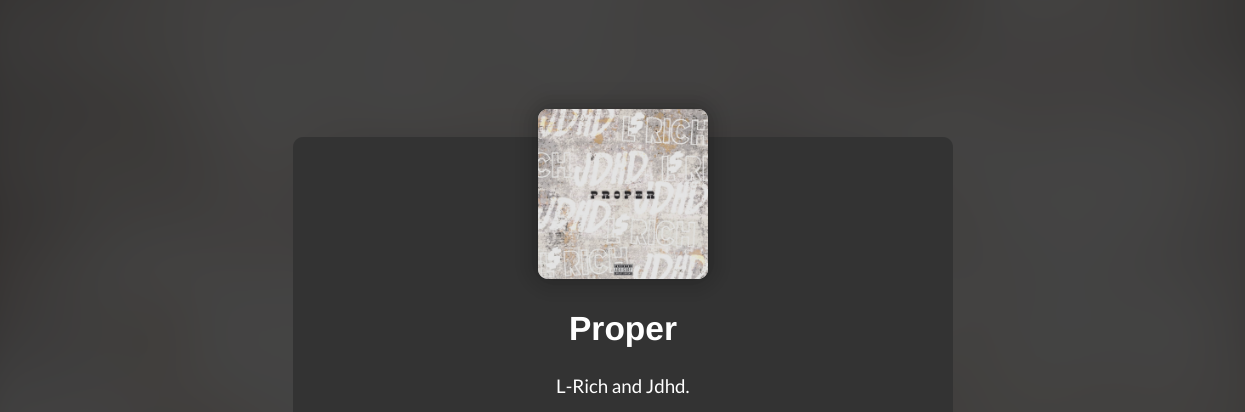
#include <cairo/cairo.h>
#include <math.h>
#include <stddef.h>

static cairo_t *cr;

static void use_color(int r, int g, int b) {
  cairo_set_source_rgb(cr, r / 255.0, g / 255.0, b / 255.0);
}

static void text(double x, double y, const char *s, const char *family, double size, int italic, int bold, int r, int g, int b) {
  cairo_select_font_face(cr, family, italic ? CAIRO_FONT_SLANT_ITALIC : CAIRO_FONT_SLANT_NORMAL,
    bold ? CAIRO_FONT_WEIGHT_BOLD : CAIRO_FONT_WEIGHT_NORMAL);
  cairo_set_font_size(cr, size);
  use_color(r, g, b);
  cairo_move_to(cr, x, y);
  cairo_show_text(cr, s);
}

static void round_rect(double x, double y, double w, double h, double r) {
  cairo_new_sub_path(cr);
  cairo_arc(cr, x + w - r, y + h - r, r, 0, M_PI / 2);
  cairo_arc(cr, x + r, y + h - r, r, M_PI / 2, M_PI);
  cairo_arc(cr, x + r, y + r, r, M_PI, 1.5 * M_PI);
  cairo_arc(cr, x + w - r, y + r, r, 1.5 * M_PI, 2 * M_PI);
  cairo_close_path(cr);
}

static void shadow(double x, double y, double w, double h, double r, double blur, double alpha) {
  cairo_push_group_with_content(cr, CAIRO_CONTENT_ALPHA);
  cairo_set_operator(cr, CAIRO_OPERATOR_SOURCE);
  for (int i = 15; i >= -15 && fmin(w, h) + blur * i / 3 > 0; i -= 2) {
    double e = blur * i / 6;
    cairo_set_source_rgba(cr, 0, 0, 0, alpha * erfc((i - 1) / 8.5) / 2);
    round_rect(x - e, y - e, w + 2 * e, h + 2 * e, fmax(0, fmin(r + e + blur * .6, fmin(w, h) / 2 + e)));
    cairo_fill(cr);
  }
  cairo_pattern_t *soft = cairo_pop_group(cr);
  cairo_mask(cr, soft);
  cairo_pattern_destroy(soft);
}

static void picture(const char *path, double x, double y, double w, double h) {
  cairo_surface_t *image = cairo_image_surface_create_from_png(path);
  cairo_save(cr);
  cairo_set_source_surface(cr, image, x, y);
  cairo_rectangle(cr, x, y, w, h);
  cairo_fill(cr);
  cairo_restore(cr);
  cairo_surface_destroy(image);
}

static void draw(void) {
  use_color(0, 0, 0);
  cairo_paint(cr);
  picture("img_01.png", 0, 0, 1245, 412);
  use_color(51, 51, 51);
  round_rect(293, 137, 660, 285, 10);
  cairo_fill(cr);
  use_color(0, 0, 0);
  shadow(538, 109, 170, 170, 10, 12.5, 0.35);
  use_color(204, 204, 204);
  round_rect(538, 109, 170, 170, 10);
  cairo_fill(cr);
  picture("img_02.png", 538, 109, 170, 170);
  text(569, 340, "Proper", "Liberation Sans", 33.5, 0, 1, 255, 255, 255);
  text(556, 393, "L-Rich and Jdhd.", "Lato", 18.75, 0, 0, 255, 255, 255);
}

int main(void) {
  cairo_surface_t *surface = cairo_image_surface_create(CAIRO_FORMAT_RGB24, 1245, 412);
  cr = cairo_create(surface);
  cairo_font_options_t *options = cairo_font_options_create();
  cairo_font_options_set_hint_metrics(options, CAIRO_HINT_METRICS_OFF);
  cairo_font_options_set_hint_style(options, CAIRO_HINT_STYLE_NONE);
  cairo_set_font_options(cr, options);
  cairo_set_miter_limit(cr, 4);
  draw();
  cairo_surface_write_to_png(surface, "out.png");
  cairo_font_options_destroy(options);
  cairo_destroy(cr);
  cairo_surface_destroy(surface);
  return 0;
}
